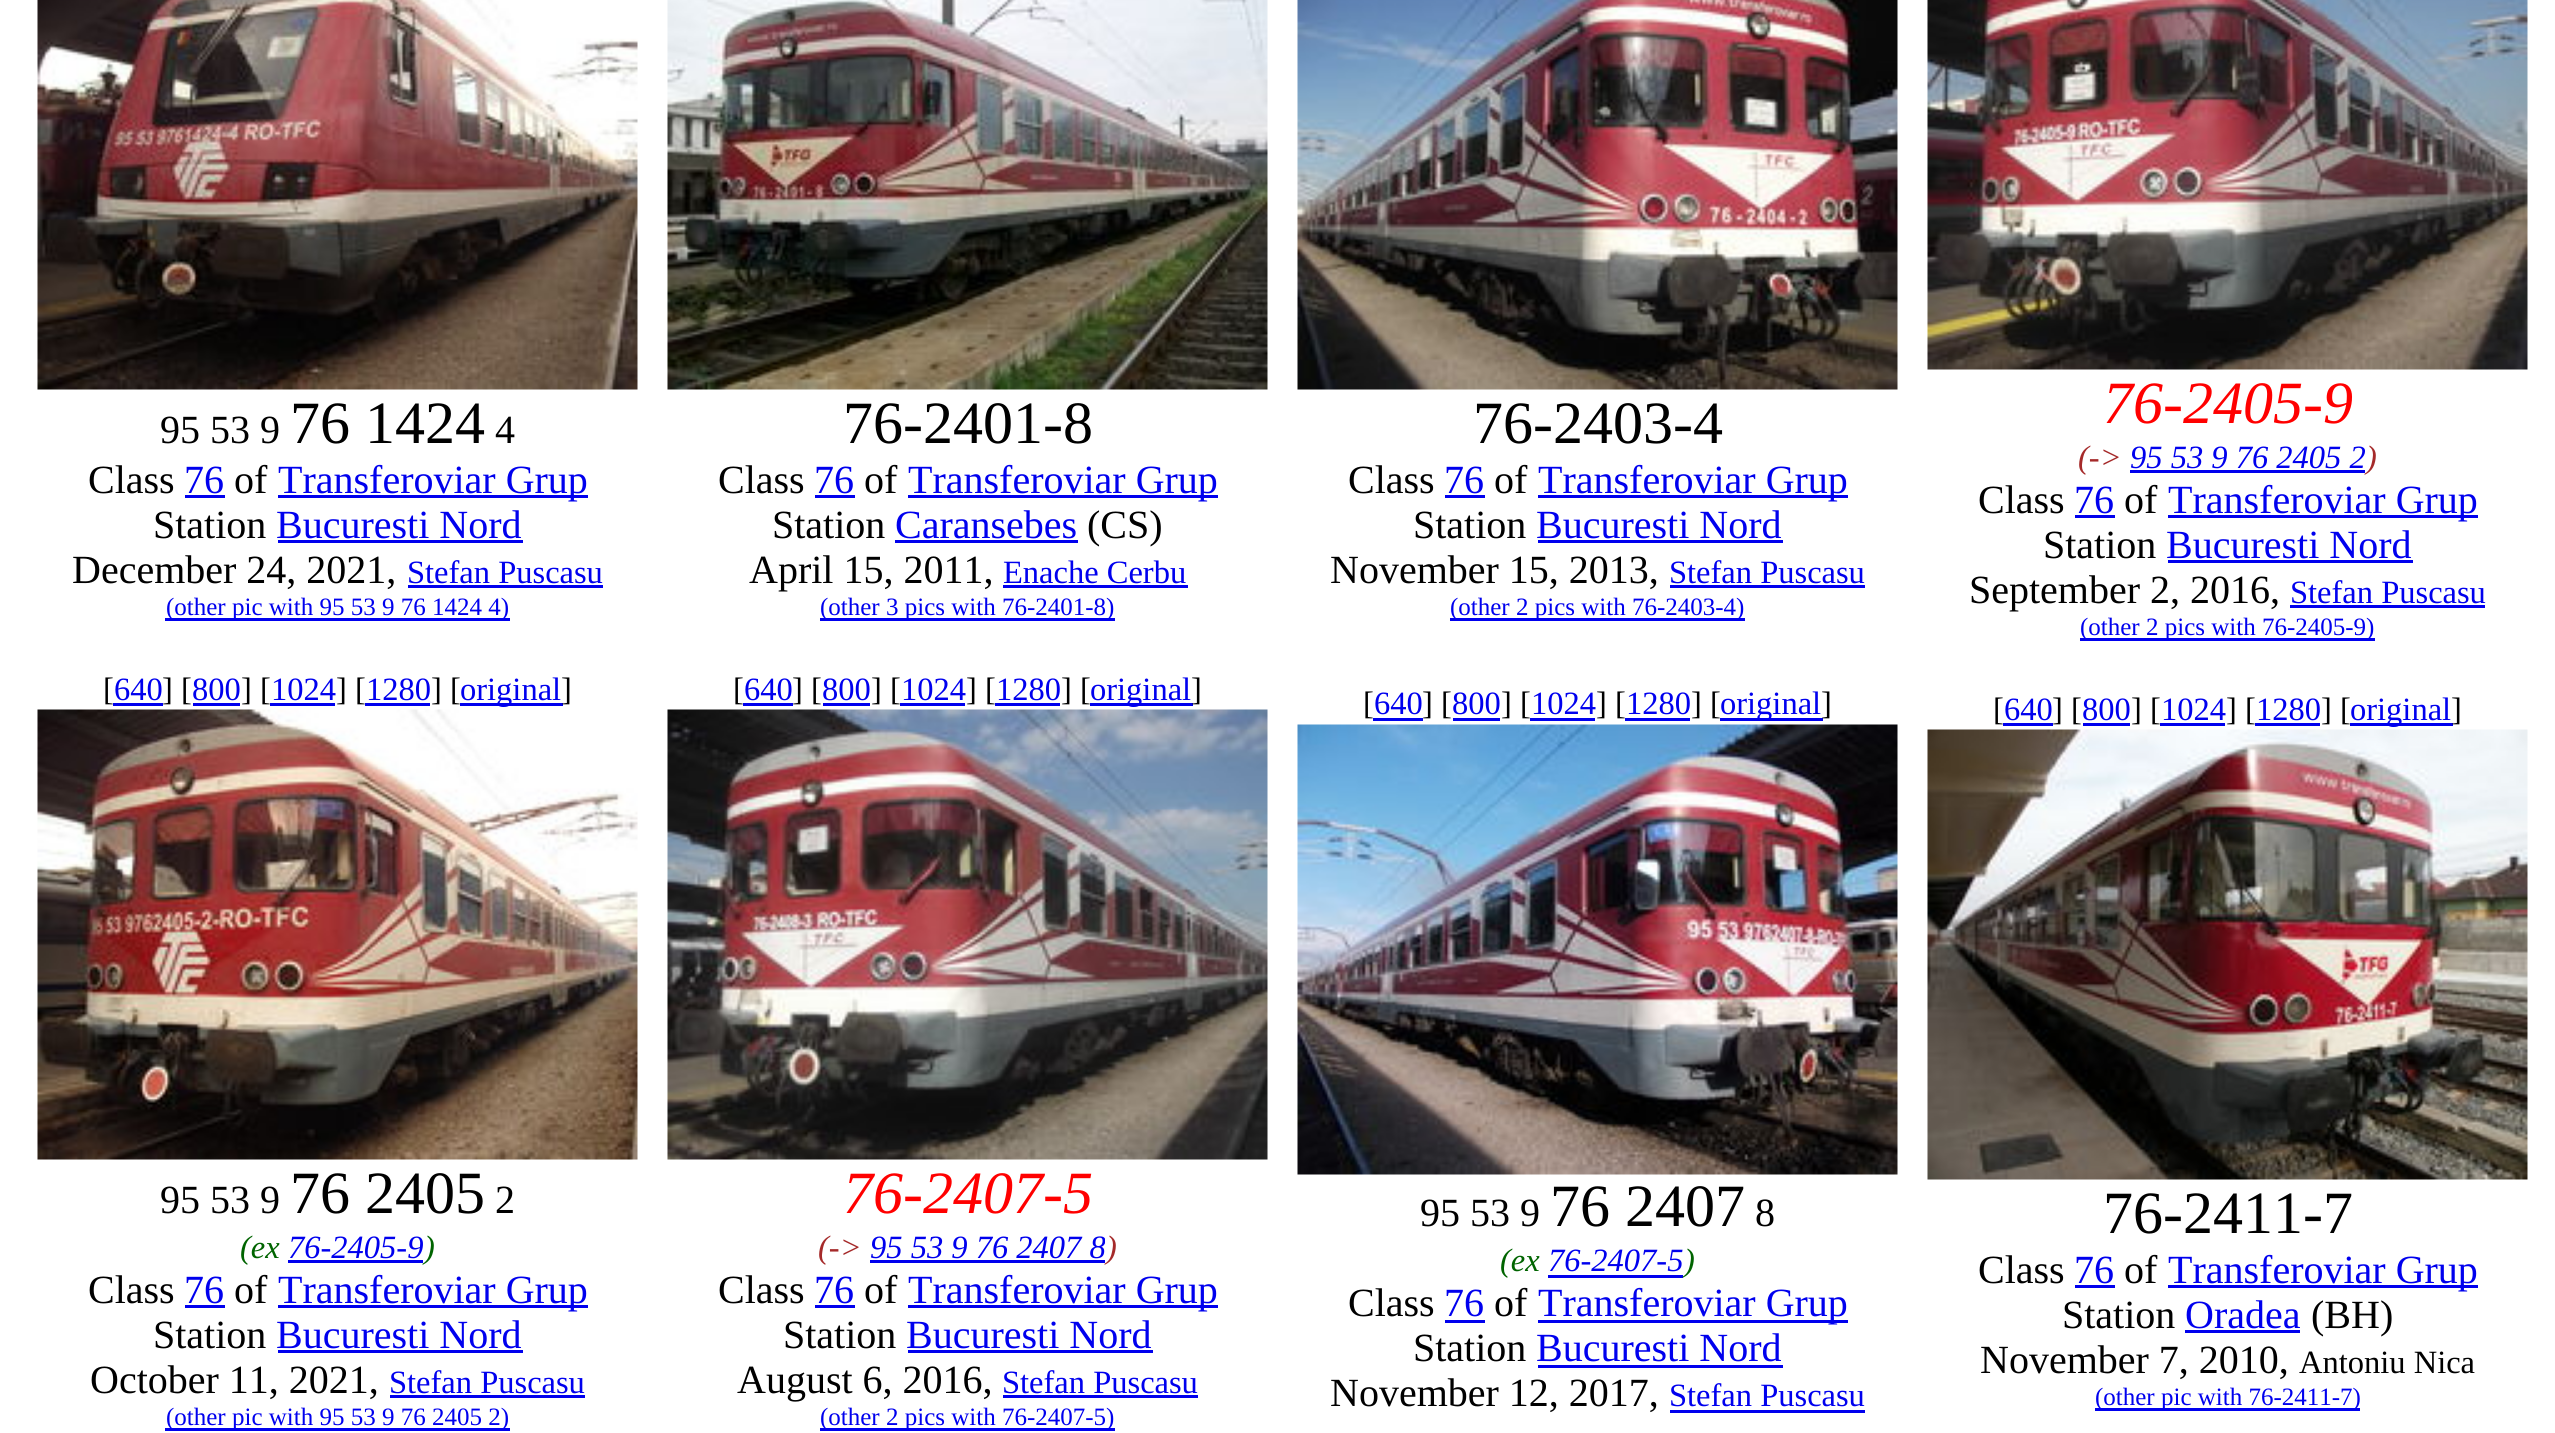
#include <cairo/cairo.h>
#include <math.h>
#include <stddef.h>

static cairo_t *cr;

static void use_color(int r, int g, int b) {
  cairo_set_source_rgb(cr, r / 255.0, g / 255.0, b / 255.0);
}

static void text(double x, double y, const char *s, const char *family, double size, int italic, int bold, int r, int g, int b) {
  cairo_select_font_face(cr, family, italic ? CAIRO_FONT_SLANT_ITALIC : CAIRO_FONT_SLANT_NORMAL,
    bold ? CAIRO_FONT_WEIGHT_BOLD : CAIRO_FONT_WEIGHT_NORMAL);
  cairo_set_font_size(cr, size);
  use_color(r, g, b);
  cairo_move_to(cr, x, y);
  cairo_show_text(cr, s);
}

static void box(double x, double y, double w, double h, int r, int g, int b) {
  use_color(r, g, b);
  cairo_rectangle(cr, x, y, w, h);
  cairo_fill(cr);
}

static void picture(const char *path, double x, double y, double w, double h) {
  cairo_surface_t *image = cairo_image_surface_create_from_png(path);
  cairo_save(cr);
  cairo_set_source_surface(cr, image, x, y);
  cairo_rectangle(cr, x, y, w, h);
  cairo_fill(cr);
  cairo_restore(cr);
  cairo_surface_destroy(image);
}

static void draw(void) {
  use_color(255, 255, 255);
  cairo_paint(cr);
  picture("img_01.png", 37, 0, 601, 390);
  box(185, 495, 40, 3, 0, 0, 238);
  box(278, 495, 310, 3, 0, 0, 238);
  box(278, 540, 245, 3, 0, 0, 238);
  box(408, 585, 195, 3, 0, 0, 238);
  box(165, 618, 345, 3, 0, 0, 238);
  picture("img_02.png", 667, 0, 601, 390);
  box(815, 495, 40, 3, 0, 0, 238);
  box(908, 495, 310, 3, 0, 0, 238);
  box(895, 540, 183, 3, 0, 0, 238);
  box(1003, 585, 185, 3, 0, 0, 238);
  box(820, 618, 295, 3, 0, 0, 238);
  picture("img_03.png", 1297, 0, 601, 390);
  box(1445, 495, 40, 3, 0, 0, 238);
  box(1538, 495, 310, 3, 0, 0, 238);
  box(1538, 540, 245, 3, 0, 0, 238);
  box(1670, 585, 195, 3, 0, 0, 238);
  box(1450, 618, 295, 3, 0, 0, 238);
  picture("img_04.png", 1927, 0, 601, 370);
  box(2130, 470, 235, 3, 0, 0, 238);
  box(2075, 515, 40, 3, 0, 0, 238);
  box(2168, 515, 310, 3, 0, 0, 238);
  box(2168, 560, 245, 3, 0, 0, 238);
  box(2290, 605, 195, 3, 0, 0, 238);
  box(2080, 638, 295, 3, 0, 0, 238);
  box(113, 703, 50, 3, 0, 0, 238);
  box(193, 703, 47, 3, 0, 0, 238);
  box(270, 703, 65, 3, 0, 0, 238);
  box(365, 703, 65, 3, 0, 0, 238);
  box(460, 703, 103, 3, 0, 0, 238);
  picture("img_05.png", 37, 709, 601, 451);
  box(288, 1260, 135, 3, 0, 0, 238);
  box(185, 1305, 40, 3, 0, 0, 238);
  box(278, 1305, 310, 3, 0, 0, 238);
  box(278, 1350, 245, 3, 0, 0, 238);
  box(390, 1395, 195, 3, 0, 0, 238);
  box(165, 1428, 345, 3, 0, 0, 238);
  box(743, 703, 50, 3, 0, 0, 238);
  box(823, 703, 47, 3, 0, 0, 238);
  box(900, 703, 65, 3, 0, 0, 238);
  box(995, 703, 65, 3, 0, 0, 238);
  box(1090, 703, 103, 3, 0, 0, 238);
  picture("img_06.png", 667, 709, 601, 451);
  box(870, 1260, 235, 3, 0, 0, 238);
  box(815, 1305, 40, 3, 0, 0, 238);
  box(908, 1305, 310, 3, 0, 0, 238);
  box(908, 1350, 245, 3, 0, 0, 238);
  box(1003, 1395, 195, 3, 0, 0, 238);
  box(820, 1428, 295, 3, 0, 0, 238);
  box(1373, 718, 50, 3, 0, 0, 238);
  box(1453, 718, 47, 3, 0, 0, 238);
  box(1530, 718, 65, 3, 0, 0, 238);
  box(1625, 718, 65, 3, 0, 0, 238);
  box(1720, 718, 103, 3, 0, 0, 238);
  picture("img_07.png", 1297, 724, 601, 451);
  box(1548, 1275, 135, 3, 0, 0, 238);
  box(1445, 1320, 40, 3, 0, 0, 238);
  box(1538, 1320, 310, 3, 0, 0, 238);
  box(1538, 1365, 245, 3, 0, 0, 238);
  box(1670, 1410, 195, 3, 0, 0, 238);
  box(2003, 723, 50, 3, 0, 0, 238);
  box(2083, 723, 47, 3, 0, 0, 238);
  box(2160, 723, 65, 3, 0, 0, 238);
  box(2255, 723, 65, 3, 0, 0, 238);
  box(2350, 723, 103, 3, 0, 0, 238);
  picture("img_08.png", 1927, 729, 601, 451);
  box(2075, 1285, 40, 3, 0, 0, 238);
  box(2168, 1285, 310, 3, 0, 0, 238);
  box(2185, 1330, 115, 3, 0, 0, 238);
  box(2095, 1408, 265, 3, 0, 0, 238);
  text(160, 443, "95 53 9", "Liberation Serif", 40, 0, 0, 0, 0, 0);
  text(290, 443, "76 1424", "Liberation Serif", 60, 0, 0, 0, 0, 0);
  text(495, 443, "4", "Liberation Serif", 40, 0, 0, 0, 0, 0);
  text(88, 493, "Class", "Liberation Serif", 40, 0, 0, 0, 0, 0);
  text(184, 493, "76", "Liberation Serif", 40, 0, 0, 0, 0, 238);
  text(234, 493, "of", "Liberation Serif", 40, 0, 0, 0, 0, 0);
  text(278, 493, "Transferoviar Grup", "Liberation Serif", 40, 0, 0, 0, 0, 238);
  text(153, 538, "Station", "Liberation Serif", 40, 0, 0, 0, 0, 0);
  text(276, 538, "Bucuresti Nord", "Liberation Serif", 40, 0, 0, 0, 0, 238);
  text(72, 583, "December 24, 2021,", "Liberation Serif", 40, 0, 0, 0, 0, 0);
  text(407, 583, "Stefan Puscasu", "Liberation Serif", 32.5, 0, 0, 0, 0, 238);
  text(166, 615, "(other pic with 95 53 9 76 1424 4)", "Liberation Serif", 25, 0, 0, 0, 0, 238);
  text(843, 443, "76-2401-8", "Liberation Serif", 60, 0, 0, 0, 0, 0);
  text(718, 493, "Class", "Liberation Serif", 40, 0, 0, 0, 0, 0);
  text(814, 493, "76", "Liberation Serif", 40, 0, 0, 0, 0, 238);
  text(864, 493, "of", "Liberation Serif", 40, 0, 0, 0, 0, 0);
  text(908, 493, "Transferoviar Grup", "Liberation Serif", 40, 0, 0, 0, 0, 238);
  text(772, 538, "Station", "Liberation Serif", 40, 0, 0, 0, 0, 0);
  text(895, 538, "Caransebes", "Liberation Serif", 40, 0, 0, 0, 0, 238);
  text(1087, 538, "(CS)", "Liberation Serif", 40, 0, 0, 0, 0, 0);
  text(749, 583, "April 15, 2011,", "Liberation Serif", 40, 0, 0, 0, 0, 0);
  text(1003, 583, "Enache Cerbu", "Liberation Serif", 32.5, 0, 0, 0, 0, 238);
  text(820, 615, "(other 3 pics with 76-2401-8)", "Liberation Serif", 25, 0, 0, 0, 0, 238);
  text(1473, 443, "76-2403-4", "Liberation Serif", 60, 0, 0, 0, 0, 0);
  text(1348, 493, "Class", "Liberation Serif", 40, 0, 0, 0, 0, 0);
  text(1444, 493, "76", "Liberation Serif", 40, 0, 0, 0, 0, 238);
  text(1494, 493, "of", "Liberation Serif", 40, 0, 0, 0, 0, 0);
  text(1538, 493, "Transferoviar Grup", "Liberation Serif", 40, 0, 0, 0, 0, 238);
  text(1413, 538, "Station", "Liberation Serif", 40, 0, 0, 0, 0, 0);
  text(1536, 538, "Bucuresti Nord", "Liberation Serif", 40, 0, 0, 0, 0, 238);
  text(1330, 583, "November 15, 2013,", "Liberation Serif", 40, 0, 0, 0, 0, 0);
  text(1669, 583, "Stefan Puscasu", "Liberation Serif", 32.5, 0, 0, 0, 0, 238);
  text(1450, 615, "(other 2 pics with 76-2403-4)", "Liberation Serif", 25, 0, 0, 0, 0, 238);
  text(2103, 423, "76-2405-9", "Liberation Serif", 60, 1, 0, 255, 0, 0);
  text(2078, 468, "(->", "Liberation Serif", 32.5, 1, 0, 165, 42, 42);
  text(2130, 468, "95 53 9 76 2405 2", "Liberation Serif", 32.5, 1, 0, 0, 0, 238);
  text(2366, 468, ")", "Liberation Serif", 32.5, 1, 0, 165, 42, 42);
  text(1978, 513, "Class", "Liberation Serif", 40, 0, 0, 0, 0, 0);
  text(2074, 513, "76", "Liberation Serif", 40, 0, 0, 0, 0, 238);
  text(2124, 513, "of", "Liberation Serif", 40, 0, 0, 0, 0, 0);
  text(2168, 513, "Transferoviar Grup", "Liberation Serif", 40, 0, 0, 0, 0, 238);
  text(2043, 558, "Station", "Liberation Serif", 40, 0, 0, 0, 0, 0);
  text(2166, 558, "Bucuresti Nord", "Liberation Serif", 40, 0, 0, 0, 0, 238);
  text(1969, 603, "September 2, 2016,", "Liberation Serif", 40, 0, 0, 0, 0, 0);
  text(2290, 603, "Stefan Puscasu", "Liberation Serif", 32.5, 0, 0, 0, 0, 238);
  text(2080, 635, "(other 2 pics with 76-2405-9)", "Liberation Serif", 25, 0, 0, 0, 0, 238);
  text(103, 700, "[", "Liberation Serif", 32.5, 0, 0, 0, 0, 0);
  text(114, 700, "640", "Liberation Serif", 32.5, 0, 0, 0, 0, 238);
  text(162, 700, "] [", "Liberation Serif", 32.5, 0, 0, 0, 0, 0);
  text(192, 700, "800", "Liberation Serif", 32.5, 0, 0, 0, 0, 238);
  text(241, 700, "] [", "Liberation Serif", 32.5, 0, 0, 0, 0, 0);
  text(271, 700, "1024", "Liberation Serif", 32.5, 0, 0, 0, 0, 238);
  text(336, 700, "] [", "Liberation Serif", 32.5, 0, 0, 0, 0, 0);
  text(366, 700, "1280", "Liberation Serif", 32.5, 0, 0, 0, 0, 238);
  text(431, 700, "] [", "Liberation Serif", 32.5, 0, 0, 0, 0, 0);
  text(460, 700, "original", "Liberation Serif", 32.5, 0, 0, 0, 0, 238);
  text(561, 700, "]", "Liberation Serif", 32.5, 0, 0, 0, 0, 0);
  text(160, 1213, "95 53 9", "Liberation Serif", 40, 0, 0, 0, 0, 0);
  text(290, 1213, "76 2405", "Liberation Serif", 60, 0, 0, 0, 0, 0);
  text(495, 1213, "2", "Liberation Serif", 40, 0, 0, 0, 0, 0);
  text(240, 1258, "(ex", "Liberation Serif", 32.5, 1, 0, 0, 100, 0);
  text(288, 1258, "76-2405-9", "Liberation Serif", 32.5, 1, 0, 0, 0, 238);
  text(424, 1258, ")", "Liberation Serif", 32.5, 1, 0, 0, 100, 0);
  text(88, 1303, "Class", "Liberation Serif", 40, 0, 0, 0, 0, 0);
  text(184, 1303, "76", "Liberation Serif", 40, 0, 0, 0, 0, 238);
  text(234, 1303, "of", "Liberation Serif", 40, 0, 0, 0, 0, 0);
  text(278, 1303, "Transferoviar Grup", "Liberation Serif", 40, 0, 0, 0, 0, 238);
  text(153, 1348, "Station", "Liberation Serif", 40, 0, 0, 0, 0, 0);
  text(276, 1348, "Bucuresti Nord", "Liberation Serif", 40, 0, 0, 0, 0, 238);
  text(90, 1393, "October 11, 2021,", "Liberation Serif", 40, 0, 0, 0, 0, 0);
  text(389, 1393, "Stefan Puscasu", "Liberation Serif", 32.5, 0, 0, 0, 0, 238);
  text(166, 1425, "(other pic with 95 53 9 76 2405 2)", "Liberation Serif", 25, 0, 0, 0, 0, 238);
  text(733, 700, "[", "Liberation Serif", 32.5, 0, 0, 0, 0, 0);
  text(744, 700, "640", "Liberation Serif", 32.5, 0, 0, 0, 0, 238);
  text(792, 700, "] [", "Liberation Serif", 32.5, 0, 0, 0, 0, 0);
  text(822, 700, "800", "Liberation Serif", 32.5, 0, 0, 0, 0, 238);
  text(871, 700, "] [", "Liberation Serif", 32.5, 0, 0, 0, 0, 0);
  text(901, 700, "1024", "Liberation Serif", 32.5, 0, 0, 0, 0, 238);
  text(966, 700, "] [", "Liberation Serif", 32.5, 0, 0, 0, 0, 0);
  text(996, 700, "1280", "Liberation Serif", 32.5, 0, 0, 0, 0, 238);
  text(1061, 700, "] [", "Liberation Serif", 32.5, 0, 0, 0, 0, 0);
  text(1090, 700, "original", "Liberation Serif", 32.5, 0, 0, 0, 0, 238);
  text(1191, 700, "]", "Liberation Serif", 32.5, 0, 0, 0, 0, 0);
  text(843, 1213, "76-2407-5", "Liberation Serif", 60, 1, 0, 255, 0, 0);
  text(818, 1258, "(->", "Liberation Serif", 32.5, 1, 0, 165, 42, 42);
  text(870, 1258, "95 53 9 76 2407 8", "Liberation Serif", 32.5, 1, 0, 0, 0, 238);
  text(1106, 1258, ")", "Liberation Serif", 32.5, 1, 0, 165, 42, 42);
  text(718, 1303, "Class", "Liberation Serif", 40, 0, 0, 0, 0, 0);
  text(814, 1303, "76", "Liberation Serif", 40, 0, 0, 0, 0, 238);
  text(864, 1303, "of", "Liberation Serif", 40, 0, 0, 0, 0, 0);
  text(908, 1303, "Transferoviar Grup", "Liberation Serif", 40, 0, 0, 0, 0, 238);
  text(783, 1348, "Station", "Liberation Serif", 40, 0, 0, 0, 0, 0);
  text(906, 1348, "Bucuresti Nord", "Liberation Serif", 40, 0, 0, 0, 0, 238);
  text(737, 1393, "August 6, 2016,", "Liberation Serif", 40, 0, 0, 0, 0, 0);
  text(1002, 1393, "Stefan Puscasu", "Liberation Serif", 32.5, 0, 0, 0, 0, 238);
  text(820, 1425, "(other 2 pics with 76-2407-5)", "Liberation Serif", 25, 0, 0, 0, 0, 238);
  text(1363, 714, "[", "Liberation Serif", 32.5, 0, 0, 0, 0, 0);
  text(1374, 714, "640", "Liberation Serif", 32.5, 0, 0, 0, 0, 238);
  text(1422, 714, "] [", "Liberation Serif", 32.5, 0, 0, 0, 0, 0);
  text(1452, 714, "800", "Liberation Serif", 32.5, 0, 0, 0, 0, 238);
  text(1501, 714, "] [", "Liberation Serif", 32.5, 0, 0, 0, 0, 0);
  text(1531, 714, "1024", "Liberation Serif", 32.5, 0, 0, 0, 0, 238);
  text(1596, 714, "] [", "Liberation Serif", 32.5, 0, 0, 0, 0, 0);
  text(1626, 714, "1280", "Liberation Serif", 32.5, 0, 0, 0, 0, 238);
  text(1691, 714, "] [", "Liberation Serif", 32.5, 0, 0, 0, 0, 0);
  text(1720, 714, "original", "Liberation Serif", 32.5, 0, 0, 0, 0, 238);
  text(1821, 714, "]", "Liberation Serif", 32.5, 0, 0, 0, 0, 0);
  text(1420, 1226, "95 53 9", "Liberation Serif", 40, 0, 0, 0, 0, 0);
  text(1550, 1226, "76 2407", "Liberation Serif", 60, 0, 0, 0, 0, 0);
  text(1755, 1226, "8", "Liberation Serif", 40, 0, 0, 0, 0, 0);
  text(1500, 1271, "(ex", "Liberation Serif", 32.5, 1, 0, 0, 100, 0);
  text(1548, 1271, "76-2407-5", "Liberation Serif", 32.5, 1, 0, 0, 0, 238);
  text(1684, 1271, ")", "Liberation Serif", 32.5, 1, 0, 0, 100, 0);
  text(1348, 1316, "Class", "Liberation Serif", 40, 0, 0, 0, 0, 0);
  text(1444, 1316, "76", "Liberation Serif", 40, 0, 0, 0, 0, 238);
  text(1494, 1316, "of", "Liberation Serif", 40, 0, 0, 0, 0, 0);
  text(1538, 1316, "Transferoviar Grup", "Liberation Serif", 40, 0, 0, 0, 0, 238);
  text(1413, 1361, "Station", "Liberation Serif", 40, 0, 0, 0, 0, 0);
  text(1536, 1361, "Bucuresti Nord", "Liberation Serif", 40, 0, 0, 0, 0, 238);
  text(1330, 1406, "November 12, 2017,", "Liberation Serif", 40, 0, 0, 0, 0, 0);
  text(1669, 1406, "Stefan Puscasu", "Liberation Serif", 32.5, 0, 0, 0, 0, 238);
  text(1993, 720, "[", "Liberation Serif", 32.5, 0, 0, 0, 0, 0);
  text(2004, 720, "640", "Liberation Serif", 32.5, 0, 0, 0, 0, 238);
  text(2052, 720, "] [", "Liberation Serif", 32.5, 0, 0, 0, 0, 0);
  text(2082, 720, "800", "Liberation Serif", 32.5, 0, 0, 0, 0, 238);
  text(2131, 720, "] [", "Liberation Serif", 32.5, 0, 0, 0, 0, 0);
  text(2161, 720, "1024", "Liberation Serif", 32.5, 0, 0, 0, 0, 238);
  text(2226, 720, "] [", "Liberation Serif", 32.5, 0, 0, 0, 0, 0);
  text(2256, 720, "1280", "Liberation Serif", 32.5, 0, 0, 0, 0, 238);
  text(2321, 720, "] [", "Liberation Serif", 32.5, 0, 0, 0, 0, 0);
  text(2350, 720, "original", "Liberation Serif", 32.5, 0, 0, 0, 0, 238);
  text(2451, 720, "]", "Liberation Serif", 32.5, 0, 0, 0, 0, 0);
  text(2103, 1233, "76-2411-7", "Liberation Serif", 60, 0, 0, 0, 0, 0);
  text(1978, 1283, "Class", "Liberation Serif", 40, 0, 0, 0, 0, 0);
  text(2074, 1283, "76", "Liberation Serif", 40, 0, 0, 0, 0, 238);
  text(2124, 1283, "of", "Liberation Serif", 40, 0, 0, 0, 0, 0);
  text(2168, 1283, "Transferoviar Grup", "Liberation Serif", 40, 0, 0, 0, 0, 238);
  text(2062, 1328, "Station", "Liberation Serif", 40, 0, 0, 0, 0, 0);
  text(2185, 1328, "Oradea", "Liberation Serif", 40, 0, 0, 0, 0, 238);
  text(2311, 1328, "(BH)", "Liberation Serif", 40, 0, 0, 0, 0, 0);
  text(1980, 1373, "November 7, 2010,", "Liberation Serif", 40, 0, 0, 0, 0, 0);
  text(2299, 1373, "Antoniu Nica", "Liberation Serif", 32.5, 0, 0, 0, 0, 0);
  text(2095, 1405, "(other pic with 76-2411-7)", "Liberation Serif", 25, 0, 0, 0, 0, 238);
}

int main(void) {
  cairo_surface_t *surface = cairo_image_surface_create(CAIRO_FORMAT_RGB24, 2555, 1433);
  cr = cairo_create(surface);
  cairo_font_options_t *options = cairo_font_options_create();
  cairo_font_options_set_hint_metrics(options, CAIRO_HINT_METRICS_OFF);
  cairo_font_options_set_hint_style(options, CAIRO_HINT_STYLE_NONE);
  cairo_set_font_options(cr, options);
  cairo_set_miter_limit(cr, 4);
  draw();
  cairo_surface_write_to_png(surface, "out.png");
  cairo_font_options_destroy(options);
  cairo_destroy(cr);
  cairo_surface_destroy(surface);
  return 0;
}
